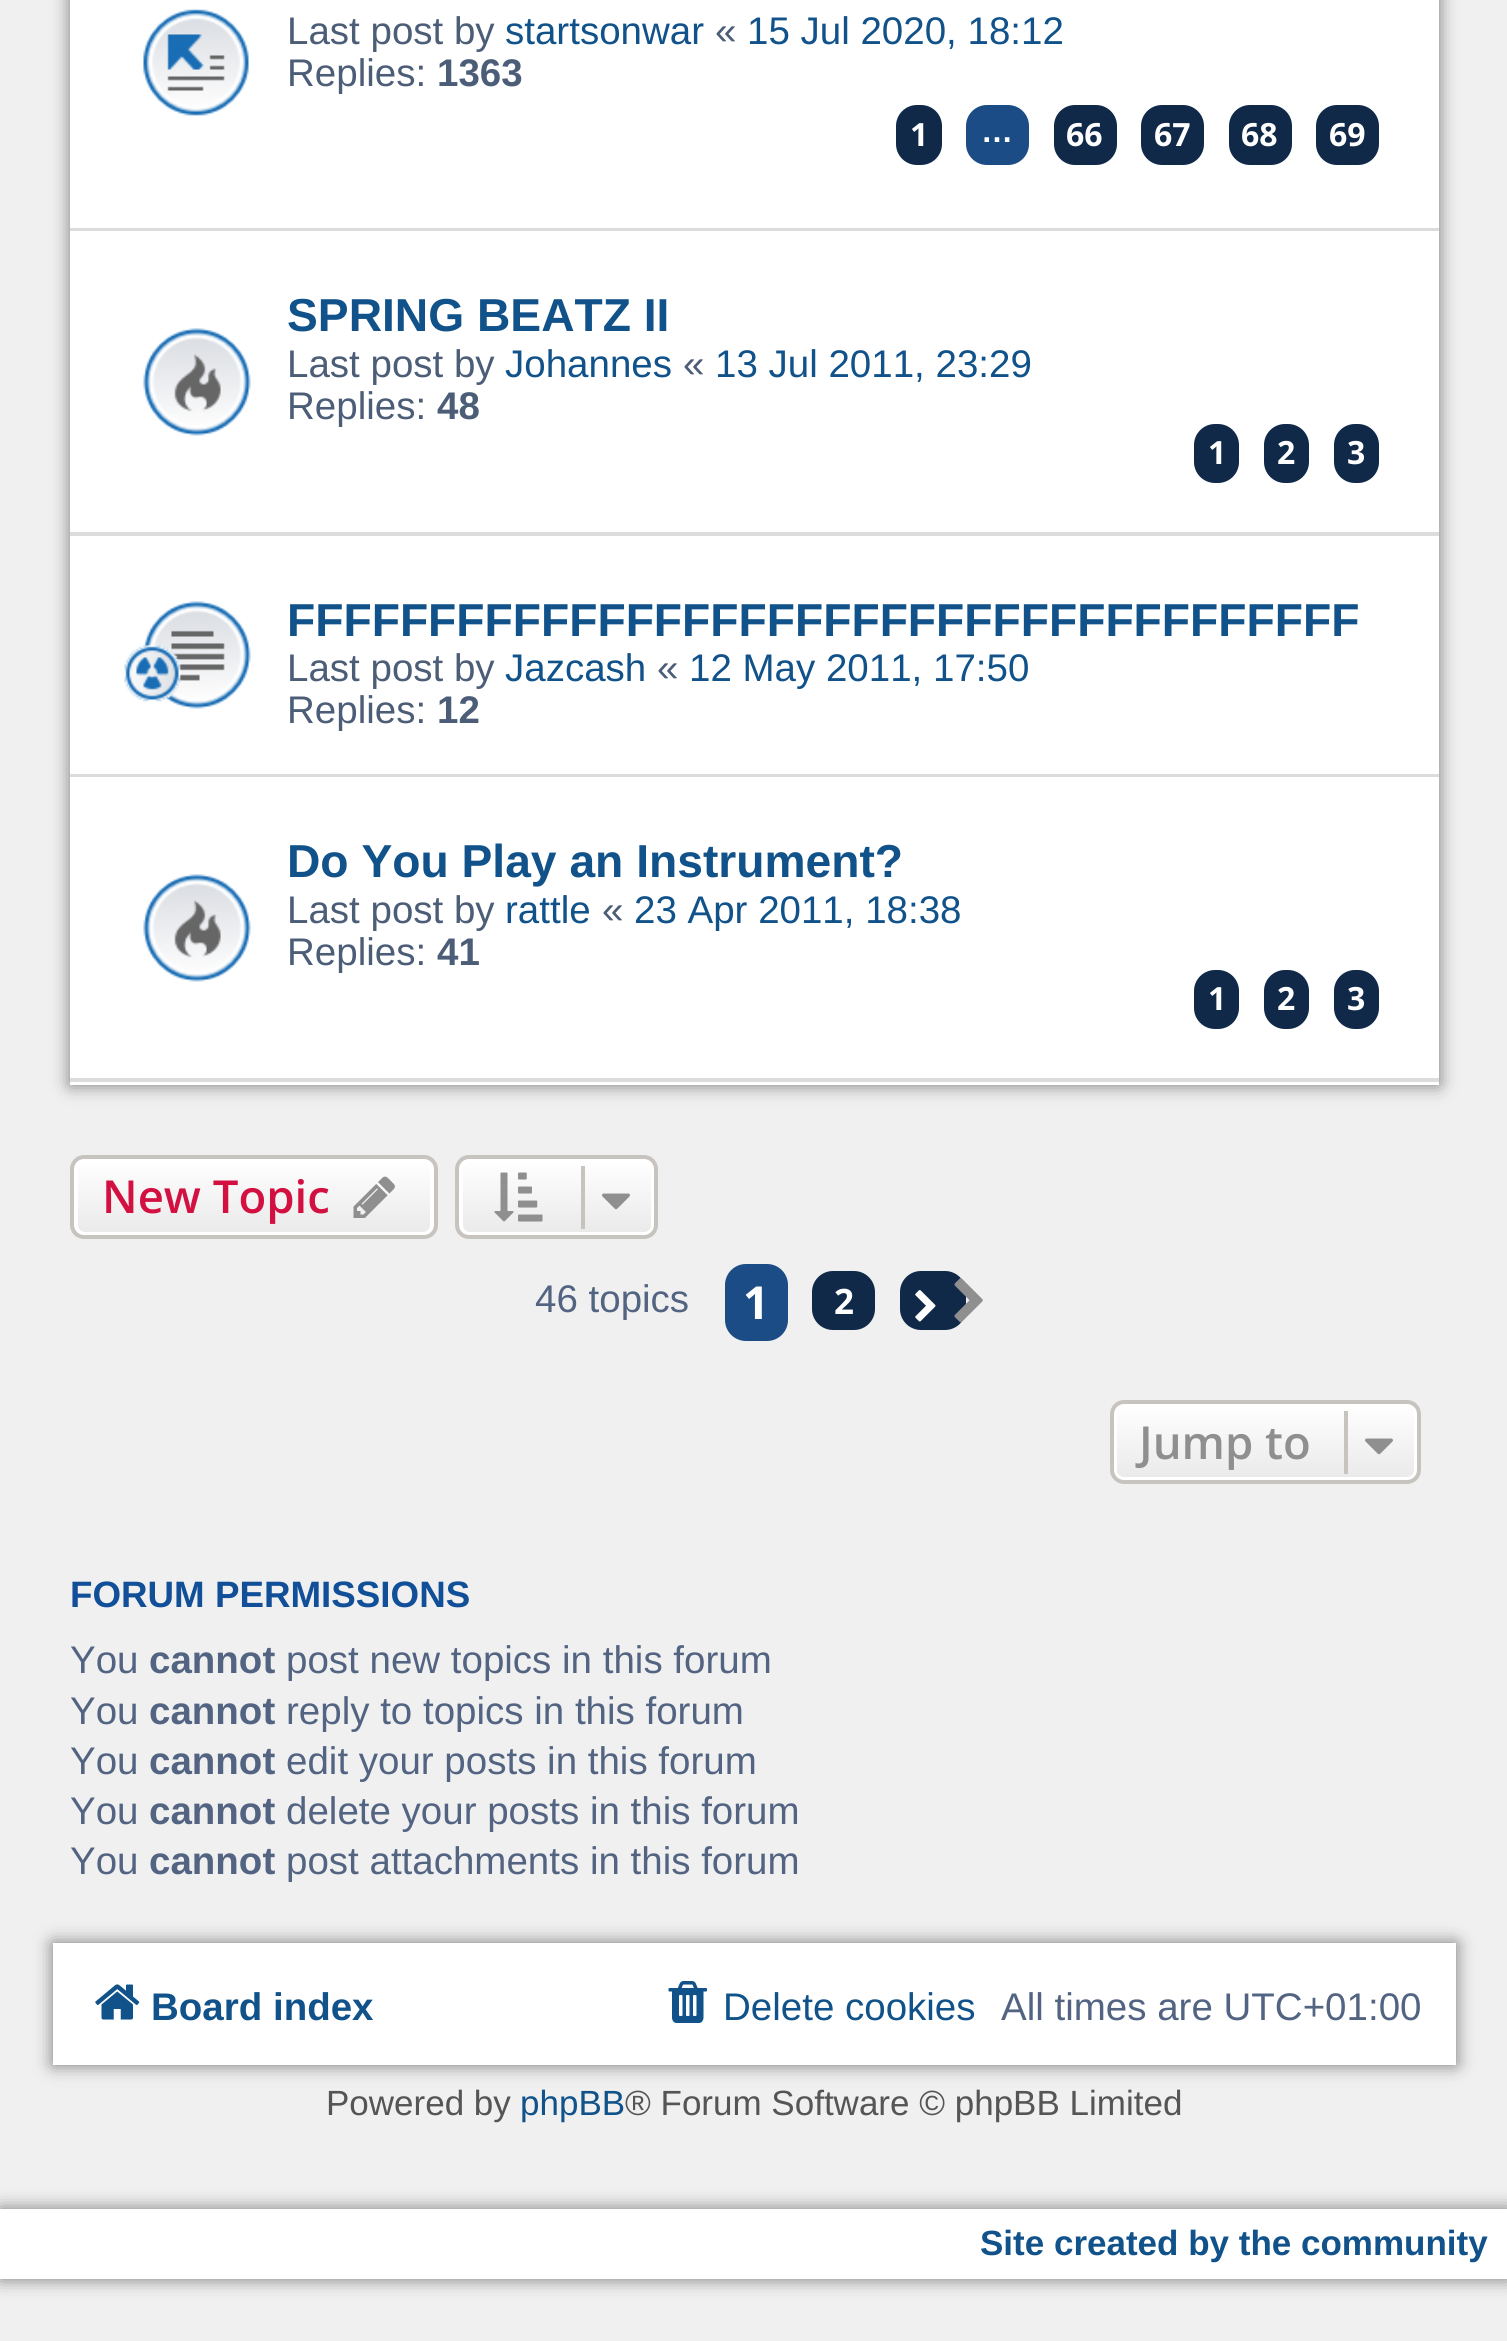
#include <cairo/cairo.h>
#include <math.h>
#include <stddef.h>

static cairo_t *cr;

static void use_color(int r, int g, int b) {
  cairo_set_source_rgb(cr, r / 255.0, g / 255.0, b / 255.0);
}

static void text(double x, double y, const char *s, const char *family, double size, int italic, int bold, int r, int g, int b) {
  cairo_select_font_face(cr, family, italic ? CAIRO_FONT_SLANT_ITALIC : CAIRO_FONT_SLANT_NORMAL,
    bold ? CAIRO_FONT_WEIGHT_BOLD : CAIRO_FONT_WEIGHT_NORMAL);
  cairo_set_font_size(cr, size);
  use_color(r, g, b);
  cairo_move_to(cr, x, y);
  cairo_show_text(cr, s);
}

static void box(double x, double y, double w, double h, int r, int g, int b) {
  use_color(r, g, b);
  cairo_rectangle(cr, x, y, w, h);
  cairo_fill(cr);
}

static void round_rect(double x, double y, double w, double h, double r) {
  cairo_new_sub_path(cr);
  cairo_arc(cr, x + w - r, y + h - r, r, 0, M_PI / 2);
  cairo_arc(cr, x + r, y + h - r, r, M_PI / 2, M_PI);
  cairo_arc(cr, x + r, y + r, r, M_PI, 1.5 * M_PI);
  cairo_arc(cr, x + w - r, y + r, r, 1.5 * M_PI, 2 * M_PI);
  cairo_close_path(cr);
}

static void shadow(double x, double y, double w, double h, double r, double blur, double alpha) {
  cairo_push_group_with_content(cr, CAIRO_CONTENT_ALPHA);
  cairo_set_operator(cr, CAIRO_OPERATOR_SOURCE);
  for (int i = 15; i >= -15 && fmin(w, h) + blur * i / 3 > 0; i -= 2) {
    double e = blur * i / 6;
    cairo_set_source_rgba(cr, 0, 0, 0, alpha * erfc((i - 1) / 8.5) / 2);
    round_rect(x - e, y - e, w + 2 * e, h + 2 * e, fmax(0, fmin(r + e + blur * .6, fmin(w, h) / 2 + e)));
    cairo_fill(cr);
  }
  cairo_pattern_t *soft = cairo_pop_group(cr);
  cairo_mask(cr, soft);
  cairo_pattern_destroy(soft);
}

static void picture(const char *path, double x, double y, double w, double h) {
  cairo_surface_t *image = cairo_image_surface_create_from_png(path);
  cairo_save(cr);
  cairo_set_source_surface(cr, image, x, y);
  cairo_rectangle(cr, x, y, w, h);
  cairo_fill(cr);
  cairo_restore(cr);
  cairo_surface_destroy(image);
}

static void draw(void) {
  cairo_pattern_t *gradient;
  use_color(240, 240, 240);
  cairo_paint(cr);
  use_color(0, 0, 0);
  shadow(70, -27, 1369, 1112, 0, 9, 0.5);
  box(70, 0, 1369, 1085, 255, 255, 255);
  box(70, 228, 1369, 3, 220, 220, 220);
  picture("img_01.png", 143, 9, 106, 107);
  use_color(16, 41, 73);
  round_rect(896, 105, 46, 60, 21);
  cairo_fill(cr);
  use_color(28, 76, 134);
  round_rect(966, 105, 63, 60, 21);
  cairo_fill(cr);
  use_color(16, 41, 73);
  round_rect(1054, 105, 63, 60, 21);
  cairo_fill(cr);
  round_rect(1141, 105, 63, 60, 21);
  cairo_fill(cr);
  round_rect(1229, 105, 63, 60, 21);
  cairo_fill(cr);
  round_rect(1316, 105, 63, 60, 21);
  cairo_fill(cr);
  box(70, 532, 1369, 4, 220, 220, 220);
  picture("img_02.png", 143, 328, 108, 108);
  use_color(16, 41, 73);
  round_rect(1194, 424, 45, 59, 21);
  cairo_fill(cr);
  round_rect(1264, 424, 45, 59, 21);
  cairo_fill(cr);
  round_rect(1334, 424, 45, 59, 21);
  cairo_fill(cr);
  box(70, 774, 1369, 3, 220, 220, 220);
  picture("img_03.png", 143, 601, 108, 108);
  picture("img_04.png", 124, 644, 57, 58);
  box(70, 1078, 1369, 4, 220, 220, 220);
  picture("img_05.png", 143, 874, 108, 108);
  use_color(16, 41, 73);
  round_rect(1194, 970, 45, 59, 21);
  cairo_fill(cr);
  round_rect(1264, 970, 45, 59, 21);
  cairo_fill(cr);
  round_rect(1334, 970, 45, 59, 21);
  cairo_fill(cr);
  cairo_save(cr);
  round_rect(70, 1155, 368, 84, 14);
  cairo_clip(cr);
  gradient = cairo_pattern_create_linear(254, 1159, 254, 1236);
  cairo_pattern_add_color_stop_rgba(gradient, 0, 1, 1, 1, 1);
  cairo_pattern_add_color_stop_rgba(gradient, 1, 0.914, 0.914, 0.914, 1);
  cairo_set_source(cr, gradient);
  cairo_pattern_destroy(gradient);
  cairo_rectangle(cr, 70, 1159, 368, 77);
  cairo_fill(cr);
  cairo_restore(cr);
  round_rect(76, 1161, 356, 73, 9);
  use_color(255, 255, 255);
  cairo_set_line_width(cr, 4);
  cairo_stroke(cr);
  round_rect(72, 1157, 364, 80, 12);
  use_color(199, 195, 191);
  cairo_stroke(cr);
  picture("img_06.png", 353, 1176, 42, 42);
  cairo_save(cr);
  round_rect(455, 1155, 203, 84, 14);
  cairo_clip(cr);
  gradient = cairo_pattern_create_linear(557, 1159, 557, 1236);
  cairo_pattern_add_color_stop_rgba(gradient, 0, 1, 1, 1, 1);
  cairo_pattern_add_color_stop_rgba(gradient, 1, 0.914, 0.914, 0.914, 1);
  cairo_set_source(cr, gradient);
  cairo_pattern_destroy(gradient);
  cairo_rectangle(cr, 455, 1159, 203, 77);
  cairo_fill(cr);
  cairo_restore(cr);
  round_rect(461, 1161, 192, 73, 9);
  use_color(255, 255, 255);
  cairo_stroke(cr);
  round_rect(457, 1157, 199, 80, 12);
  use_color(199, 195, 191);
  cairo_stroke(cr);
  picture("img_07.png", 494, 1172, 49, 50);
  box(581, 1166, 4, 63, 199, 195, 191);
  picture("img_08.png", 602, 1193, 28, 17);
  use_color(28, 76, 134);
  round_rect(725, 1264, 63, 77, 21);
  cairo_fill(cr);
  use_color(16, 41, 73);
  round_rect(812, 1271, 63, 59, 21);
  cairo_fill(cr);
  round_rect(900, 1271, 66, 59, 21);
  cairo_fill(cr);
  picture("img_09.png", 915, 1290, 21, 32);
  picture("img_10.png", 954, 1278, 29, 45);
  cairo_save(cr);
  round_rect(1110, 1400, 311, 84, 14);
  cairo_clip(cr);
  gradient = cairo_pattern_create_linear(1265, 1404, 1265, 1481);
  cairo_pattern_add_color_stop_rgba(gradient, 0, 1, 1, 1, 1);
  cairo_pattern_add_color_stop_rgba(gradient, 1, 0.914, 0.914, 0.914, 1);
  cairo_set_source(cr, gradient);
  cairo_pattern_destroy(gradient);
  cairo_rectangle(cr, 1110, 1404, 311, 77);
  cairo_fill(cr);
  cairo_restore(cr);
  round_rect(1115, 1406, 301, 73, 9);
  use_color(255, 255, 255);
  cairo_stroke(cr);
  round_rect(1112, 1402, 307, 80, 12);
  use_color(199, 195, 191);
  cairo_stroke(cr);
  box(1344, 1411, 4, 63, 199, 195, 191);
  picture("img_08.png", 1365, 1438, 28, 17);
  use_color(0, 0, 0);
  shadow(53, 1943, 1403, 122, 0, 9, 0.5);
  box(53, 1943, 1403, 122, 255, 255, 255);
  picture("img_11.png", 95, 1984, 45, 36);
  picture("img_12.png", 668, 1981, 39, 42);
  use_color(0, 0, 0);
  shadow(0, 2209, 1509, 70, 0, 9, 0.5);
  box(0, 2209, 1507, 70, 255, 255, 255);
  text(287, 44, "Last post by", "Liberation Sans", 38.5, 0, 0, 76, 93, 119);
  text(505, 44, "startsonwar", "Liberation Sans", 38.5, 0, 0, 16, 82, 137);
  text(715, 44, "«", "Liberation Sans", 38.5, 0, 0, 76, 93, 119);
  text(747, 44, "15 Jul 2020, 18:12", "Liberation Sans", 38.5, 0, 0, 16, 82, 137);
  text(287, 86, "Replies:", "Liberation Sans", 38.5, 0, 0, 76, 93, 119);
  text(437, 86, "1363", "Liberation Sans", 38.5, 0, 1, 76, 93, 119);
  text(910, 146, "1", "Open Sans", 32, 0, 1, 255, 255, 255);
  text(981, 142, "…", "Liberation Sans", 32, 0, 1, 255, 255, 255);
  text(1066, 146, "66", "Open Sans", 32, 0, 1, 255, 255, 255);
  text(1154, 146, "67", "Open Sans", 32, 0, 1, 255, 255, 255);
  text(1241, 146, "68", "Open Sans", 32, 0, 1, 255, 255, 255);
  text(1329, 146, "69", "Open Sans", 32, 0, 1, 255, 255, 255);
  text(287, 331, "SPRING BEATZ II", "Liberation Sans", 46.2, 0, 1, 16, 82, 137);
  text(287, 377, "Last post by", "Liberation Sans", 38.5, 0, 0, 76, 93, 119);
  text(505, 377, "Johannes", "Liberation Sans", 38.5, 0, 0, 16, 82, 137);
  text(683, 377, "«", "Liberation Sans", 38.5, 0, 0, 76, 93, 119);
  text(715, 377, "13 Jul 2011, 23:29", "Liberation Sans", 38.5, 0, 0, 16, 82, 137);
  text(287, 419, "Replies:", "Liberation Sans", 38.5, 0, 0, 76, 93, 119);
  text(437, 419, "48", "Liberation Sans", 38.5, 0, 1, 76, 93, 119);
  text(1208, 464, "1", "Open Sans", 32, 0, 1, 255, 255, 255);
  text(1277, 464, "2", "Open Sans", 32, 0, 1, 255, 255, 255);
  text(1347, 464, "3", "Open Sans", 32, 0, 1, 255, 255, 255);
  text(287, 636, "FFFFFFFFFFFFFFFFFFFFFFFFFFFFFFFFFFFFFF", "Liberation Sans", 46.2, 0, 1, 16, 82, 137);
  text(287, 681, "Last post by", "Liberation Sans", 38.5, 0, 0, 76, 93, 119);
  text(505, 681, "Jazcash", "Liberation Sans", 38.5, 0, 0, 16, 82, 137);
  text(657, 681, "«", "Liberation Sans", 38.5, 0, 0, 76, 93, 119);
  text(689, 681, "12 May 2011, 17:50", "Liberation Sans", 38.5, 0, 0, 16, 82, 137);
  text(287, 723, "Replies:", "Liberation Sans", 38.5, 0, 0, 76, 93, 119);
  text(437, 723, "12", "Liberation Sans", 38.5, 0, 1, 76, 93, 119);
  text(287, 877, "Do You Play an Instrument?", "Liberation Sans", 46.2, 0, 1, 16, 82, 137);
  text(287, 923, "Last post by", "Liberation Sans", 38.5, 0, 0, 76, 93, 119);
  text(505, 923, "rattle", "Liberation Sans", 38.5, 0, 0, 16, 82, 137);
  text(602, 923, "«", "Liberation Sans", 38.5, 0, 0, 76, 93, 119);
  text(634, 923, "23 Apr 2011, 18:38", "Liberation Sans", 38.5, 0, 0, 16, 82, 137);
  text(287, 965, "Replies:", "Liberation Sans", 38.5, 0, 0, 76, 93, 119);
  text(437, 965, "41", "Liberation Sans", 38.5, 0, 1, 76, 93, 119);
  text(1208, 1010, "1", "Open Sans", 32, 0, 1, 255, 255, 255);
  text(1277, 1010, "2", "Open Sans", 32, 0, 1, 255, 255, 255);
  text(1347, 1010, "3", "Open Sans", 32, 0, 1, 255, 255, 255);
  text(102, 1213, "New Topic", "Open Sans SemiBold", 45.5, 0, 0, 211, 17, 65);
  text(535, 1312, "46 topics", "Liberation Sans", 38.5, 0, 0, 83, 100, 130);
  text(743, 1319, "1", "Open Sans", 45.5, 0, 1, 255, 255, 255);
  text(834, 1314, "2", "Open Sans", 35, 0, 1, 255, 255, 255);
  text(1139, 1459, "Jump to", "Open Sans SemiBold", 45.5, 0, 0, 143, 143, 143);
  text(70, 1607, "FORUM PERMISSIONS", "Liberation Sans", 36.75, 0, 1, 17, 80, 152);
  text(70, 1673, "You", "Liberation Sans", 38.5, 0, 0, 83, 100, 130);
  text(149, 1673, "cannot", "Liberation Sans", 38.5, 0, 1, 83, 100, 130);
  text(286, 1673, "post new topics in this forum", "Liberation Sans", 38.5, 0, 0, 83, 100, 130);
  text(70, 1724, "You", "Liberation Sans", 38.5, 0, 0, 83, 100, 130);
  text(149, 1724, "cannot", "Liberation Sans", 38.5, 0, 1, 83, 100, 130);
  text(286, 1724, "reply to topics in this forum", "Liberation Sans", 38.5, 0, 0, 83, 100, 130);
  text(70, 1774, "You", "Liberation Sans", 38.5, 0, 0, 83, 100, 130);
  text(149, 1774, "cannot", "Liberation Sans", 38.5, 0, 1, 83, 100, 130);
  text(286, 1774, "edit your posts in this forum", "Liberation Sans", 38.5, 0, 0, 83, 100, 130);
  text(70, 1824, "You", "Liberation Sans", 38.5, 0, 0, 83, 100, 130);
  text(149, 1824, "cannot", "Liberation Sans", 38.5, 0, 1, 83, 100, 130);
  text(286, 1824, "delete your posts in this forum", "Liberation Sans", 38.5, 0, 0, 83, 100, 130);
  text(70, 1874, "You", "Liberation Sans", 38.5, 0, 0, 83, 100, 130);
  text(149, 1874, "cannot", "Liberation Sans", 38.5, 0, 1, 83, 100, 130);
  text(286, 1874, "post attachments in this forum", "Liberation Sans", 38.5, 0, 0, 83, 100, 130);
  text(151, 2020, "Board index", "Liberation Sans", 38.5, 0, 1, 16, 82, 137);
  text(723, 2020, "Delete cookies", "Liberation Sans", 38.5, 0, 0, 16, 82, 137);
  text(1001, 2020, "All times are UTC+01:00", "Liberation Sans", 38.5, 0, 0, 83, 100, 130);
  text(326, 2115, "Powered by", "Liberation Sans", 35, 0, 0, 85, 85, 85);
  text(520, 2115, "phpBB", "Liberation Sans", 35, 0, 0, 16, 82, 137);
  text(625, 2115, "® Forum Software © phpBB Limited", "Liberation Sans", 35, 0, 0, 85, 85, 85);
  text(980, 2255, "Site created by the community", "Liberation Sans", 35, 0, 1, 16, 82, 137);
}

int main(void) {
  cairo_surface_t *surface = cairo_image_surface_create(CAIRO_FORMAT_RGB24, 1507, 2341);
  cr = cairo_create(surface);
  cairo_font_options_t *options = cairo_font_options_create();
  cairo_font_options_set_hint_metrics(options, CAIRO_HINT_METRICS_OFF);
  cairo_font_options_set_hint_style(options, CAIRO_HINT_STYLE_NONE);
  cairo_set_font_options(cr, options);
  cairo_set_miter_limit(cr, 4);
  draw();
  cairo_surface_write_to_png(surface, "out.png");
  cairo_font_options_destroy(options);
  cairo_destroy(cr);
  cairo_surface_destroy(surface);
  return 0;
}
